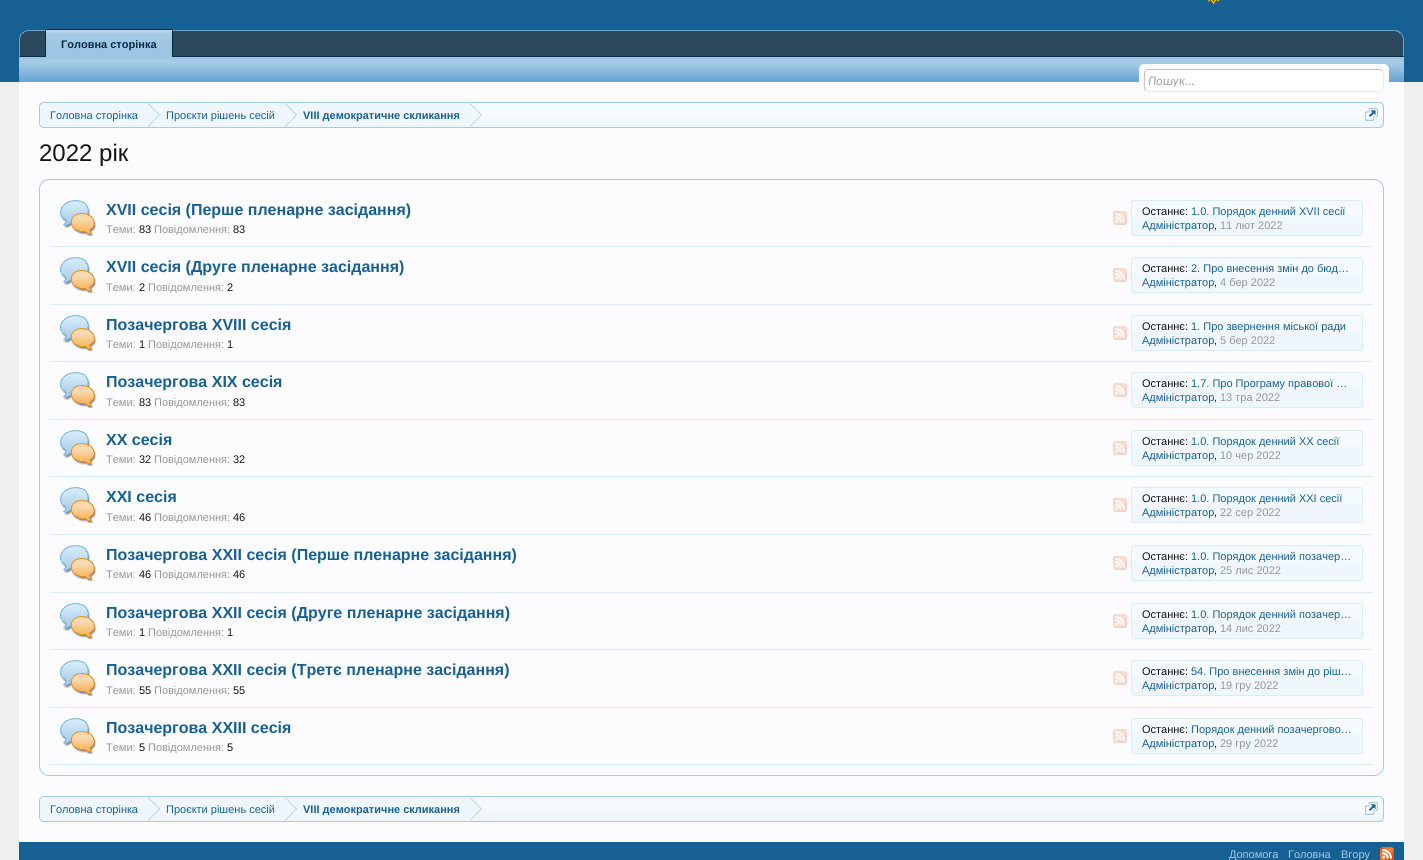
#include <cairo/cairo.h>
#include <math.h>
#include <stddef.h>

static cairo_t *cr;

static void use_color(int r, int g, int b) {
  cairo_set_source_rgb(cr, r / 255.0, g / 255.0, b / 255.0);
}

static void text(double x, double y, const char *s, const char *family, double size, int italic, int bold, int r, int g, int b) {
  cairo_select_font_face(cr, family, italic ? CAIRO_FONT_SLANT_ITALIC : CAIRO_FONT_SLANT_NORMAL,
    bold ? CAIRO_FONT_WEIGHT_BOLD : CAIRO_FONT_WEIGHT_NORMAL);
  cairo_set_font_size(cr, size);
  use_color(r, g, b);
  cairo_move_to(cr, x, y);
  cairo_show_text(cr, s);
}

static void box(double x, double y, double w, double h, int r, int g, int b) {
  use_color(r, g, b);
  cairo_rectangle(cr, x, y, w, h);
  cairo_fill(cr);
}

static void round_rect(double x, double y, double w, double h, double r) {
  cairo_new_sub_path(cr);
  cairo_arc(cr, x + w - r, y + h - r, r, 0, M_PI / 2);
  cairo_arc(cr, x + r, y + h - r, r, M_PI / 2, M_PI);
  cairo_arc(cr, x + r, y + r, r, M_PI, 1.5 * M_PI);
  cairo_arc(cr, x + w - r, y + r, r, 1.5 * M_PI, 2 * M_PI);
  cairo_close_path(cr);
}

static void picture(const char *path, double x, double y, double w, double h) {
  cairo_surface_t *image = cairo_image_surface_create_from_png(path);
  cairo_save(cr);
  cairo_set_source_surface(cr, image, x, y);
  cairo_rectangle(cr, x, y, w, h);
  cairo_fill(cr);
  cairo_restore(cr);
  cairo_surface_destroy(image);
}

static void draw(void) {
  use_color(240, 240, 240);
  cairo_paint(cr);
  box(0, 0, 1423, 82, 23, 96, 147);
  picture("img_01.png", 1201, 0, 25, 5);
  use_color(43, 72, 92);
  cairo_new_path(cr);
  cairo_move_to(cr, 29, 30);
  cairo_line_to(cr, 1394, 30);
  cairo_curve_to(cr, 1399.5, 30, 1404, 34.5, 1404, 40);
  cairo_line_to(cr, 1404, 57);
  cairo_line_to(cr, 19, 57);
  cairo_line_to(cr, 19, 40);
  cairo_curve_to(cr, 19, 34.5, 23.5, 30, 29, 30);
  cairo_close_path(cr);
  cairo_fill(cr);
  use_color(101, 165, 209);
  cairo_new_path(cr);
  cairo_move_to(cr, 29, 30);
  cairo_curve_to(cr, 26, 30, 24, 31, 22, 33);
  cairo_line_to(cr, 23, 34);
  cairo_curve_to(cr, 24, 32, 26, 31, 29, 31);
  cairo_line_to(cr, 1394, 31);
  cairo_curve_to(cr, 1396, 31, 1399, 32, 1400, 34);
  cairo_line_to(cr, 1401, 33);
  cairo_curve_to(cr, 1400, 31, 1397, 30, 1394, 30);
  cairo_close_path(cr);
  cairo_fill(cr);
  cairo_new_path(cr);
  cairo_move_to(cr, 1404, 57);
  cairo_line_to(cr, 1404, 40);
  cairo_curve_to(cr, 1404, 37, 1403, 34.5, 1401, 33);
  cairo_line_to(cr, 1400.5, 33.5);
  cairo_curve_to(cr, 1402, 35, 1403, 37.5, 1403, 40);
  cairo_line_to(cr, 1403, 56);
  cairo_close_path(cr);
  cairo_fill(cr);
  use_color(3, 42, 70);
  cairo_new_path(cr);
  cairo_move_to(cr, 1404, 57);
  cairo_line_to(cr, 1403, 56);
  cairo_line_to(cr, 20, 56);
  cairo_line_to(cr, 19, 57);
  cairo_close_path(cr);
  cairo_fill(cr);
  use_color(101, 165, 209);
  cairo_new_path(cr);
  cairo_move_to(cr, 19, 57);
  cairo_line_to(cr, 20, 56);
  cairo_line_to(cr, 20, 40);
  cairo_curve_to(cr, 20, 37.5, 21, 35, 22.5, 33.5);
  cairo_line_to(cr, 22, 33);
  cairo_curve_to(cr, 20, 34.5, 19, 37, 19, 40);
  cairo_close_path(cr);
  cairo_fill(cr);
  cairo_new_path(cr);
  cairo_move_to(cr, 47, 29);
  cairo_line_to(cr, 171, 29);
  cairo_curve_to(cr, 172, 29, 173, 30, 173, 31);
  cairo_line_to(cr, 173, 57);
  cairo_line_to(cr, 45, 57);
  cairo_line_to(cr, 45, 31);
  cairo_curve_to(cr, 45, 30, 46, 29, 47, 29);
  cairo_close_path(cr);
  cairo_fill(cr);
  picture("img_02.png", 46, 30, 126, 27);
  box(46, 29, 126, 1, 3, 42, 70);
  box(172, 30, 1, 27, 3, 42, 70);
  box(45, 30, 1, 27, 3, 42, 70);
  box(19, 57, 1385, 25, 101, 165, 209);
  picture("img_03.png", 19, 57, 1385, 24);
  box(19, 82, 1385, 760, 252, 252, 255);
  round_rect(1139, 64, 250, 28, 5);
  cairo_fill(cr);
  use_color(255, 255, 255);
  round_rect(1144, 69, 240, 23, 4);
  cairo_fill(cr);
  cairo_new_path(cr);
  cairo_move_to(cr, 1382.5, 70.5);
  cairo_curve_to(cr, 1384.5, 73, 1383.5, 82.5, 1383.5, 85.5);
  cairo_curve_to(cr, 1383.5, 88, 1383.5, 91.5, 1380, 91.5);
  cairo_line_to(cr, 1148, 91.5);
  cairo_line_to(cr, 1145.5, 90.5);
  use_color(233, 233, 233);
  cairo_set_line_width(cr, 1);
  cairo_stroke(cr);
  cairo_new_path(cr);
  cairo_move_to(cr, 1145.5, 90.5);
  cairo_curve_to(cr, 1143.5, 88, 1144.5, 78.5, 1144.5, 75.5);
  cairo_curve_to(cr, 1144.5, 73, 1144.5, 69.5, 1148, 69.5);
  cairo_line_to(cr, 1380, 69.5);
  cairo_line_to(cr, 1382.5, 70.5);
  use_color(192, 192, 192);
  cairo_stroke(cr);
  use_color(240, 247, 252);
  round_rect(39, 102, 1345, 26, 5);
  cairo_fill(cr);
  picture("img_04.png", 39, 103, 1345, 16);
  round_rect(39.5, 102.5, 1344, 25, 4.5);
  use_color(165, 202, 228);
  cairo_stroke(cr);
  cairo_save(cr);
  round_rect(40, 103, 1343, 24, 4);
  cairo_clip(cr);
  use_color(240, 247, 252);
  cairo_new_path(cr);
  cairo_move_to(cr, 45, 103);
  cairo_line_to(cr, 148, 103);
  cairo_line_to(cr, 148, 128);
  cairo_line_to(cr, 45, 128);
  cairo_curve_to(cr, 42, 128, 40, 126, 40, 123);
  cairo_line_to(cr, 40, 108);
  cairo_curve_to(cr, 40, 105, 42, 103, 45, 103);
  cairo_close_path(cr);
  cairo_fill(cr);
  cairo_restore(cr);
  box(148, 103, 322, 16, 240, 247, 252);
  use_color(165, 202, 228);
  cairo_new_path(cr);
  cairo_move_to(cr, 148, 127);
  cairo_line_to(cr, 148, 103);
  cairo_line_to(cr, 160, 115);
  cairo_close_path(cr);
  cairo_fill(cr);
  use_color(240, 247, 252);
  cairo_new_path(cr);
  cairo_move_to(cr, 147, 127);
  cairo_line_to(cr, 147, 103);
  cairo_line_to(cr, 159, 115);
  cairo_close_path(cr);
  cairo_fill(cr);
  use_color(165, 202, 228);
  cairo_new_path(cr);
  cairo_move_to(cr, 285, 127);
  cairo_line_to(cr, 285, 103);
  cairo_line_to(cr, 297, 115);
  cairo_close_path(cr);
  cairo_fill(cr);
  use_color(240, 247, 252);
  cairo_new_path(cr);
  cairo_move_to(cr, 284, 127);
  cairo_line_to(cr, 284, 103);
  cairo_line_to(cr, 296, 115);
  cairo_close_path(cr);
  cairo_fill(cr);
  use_color(165, 202, 228);
  cairo_new_path(cr);
  cairo_move_to(cr, 470, 127);
  cairo_line_to(cr, 470, 103);
  cairo_line_to(cr, 482, 115);
  cairo_close_path(cr);
  cairo_fill(cr);
  use_color(240, 247, 252);
  cairo_new_path(cr);
  cairo_move_to(cr, 469, 127);
  cairo_line_to(cr, 469, 103);
  cairo_line_to(cr, 481, 115);
  cairo_close_path(cr);
  cairo_fill(cr);
  picture("img_05.png", 1365, 108, 13, 13);
  round_rect(39.5, 179.5, 1344, 596, 9.5);
  use_color(165, 202, 228);
  cairo_stroke(cr);
  box(50, 246, 1323, 1, 215, 237, 252);
  picture("img_06.png", 60, 200, 36, 36);
  picture("img_07.png", 1113, 211, 14, 14);
  use_color(240, 247, 252);
  round_rect(1131, 200, 232, 36, 3);
  cairo_fill(cr);
  picture("img_08.png", 1131, 201, 232, 16);
  round_rect(1131.5, 200.5, 231, 35, 2.5);
  use_color(215, 237, 252);
  cairo_stroke(cr);
  box(50, 304, 1323, 1, 215, 237, 252);
  picture("img_06.png", 60, 257, 36, 36);
  picture("img_07.png", 1113, 268, 14, 14);
  use_color(240, 247, 252);
  round_rect(1131, 257, 232, 36, 3);
  cairo_fill(cr);
  picture("img_08.png", 1131, 258, 232, 16);
  round_rect(1131.5, 257.5, 231, 35, 2.5);
  use_color(215, 237, 252);
  cairo_stroke(cr);
  box(50, 361, 1323, 1, 215, 237, 252);
  picture("img_06.png", 60, 315, 36, 36);
  picture("img_07.png", 1113, 326, 14, 14);
  use_color(240, 247, 252);
  round_rect(1131, 315, 232, 36, 3);
  cairo_fill(cr);
  picture("img_08.png", 1131, 316, 232, 16);
  round_rect(1131.5, 315.5, 231, 35, 2.5);
  use_color(215, 237, 252);
  cairo_stroke(cr);
  box(50, 419, 1323, 1, 215, 237, 252);
  picture("img_06.png", 60, 372, 36, 36);
  picture("img_07.png", 1113, 383, 14, 14);
  use_color(240, 247, 252);
  round_rect(1131, 372, 232, 36, 3);
  cairo_fill(cr);
  picture("img_08.png", 1131, 373, 232, 16);
  round_rect(1131.5, 372.5, 231, 35, 2.5);
  use_color(215, 237, 252);
  cairo_stroke(cr);
  box(50, 476, 1323, 1, 215, 237, 252);
  picture("img_06.png", 60, 430, 36, 36);
  picture("img_07.png", 1113, 441, 14, 14);
  use_color(240, 247, 252);
  round_rect(1131, 430, 232, 36, 3);
  cairo_fill(cr);
  picture("img_08.png", 1131, 431, 232, 16);
  round_rect(1131.5, 430.5, 231, 35, 2.5);
  use_color(215, 237, 252);
  cairo_stroke(cr);
  box(50, 534, 1323, 1, 215, 237, 252);
  picture("img_06.png", 60, 487, 36, 36);
  picture("img_07.png", 1113, 498, 14, 14);
  use_color(240, 247, 252);
  round_rect(1131, 487, 232, 36, 3);
  cairo_fill(cr);
  picture("img_08.png", 1131, 488, 232, 16);
  round_rect(1131.5, 487.5, 231, 35, 2.5);
  use_color(215, 237, 252);
  cairo_stroke(cr);
  box(50, 592, 1323, 1, 215, 237, 252);
  picture("img_06.png", 60, 545, 36, 36);
  picture("img_07.png", 1113, 556, 14, 14);
  use_color(240, 247, 252);
  round_rect(1131, 545, 232, 36, 3);
  cairo_fill(cr);
  picture("img_08.png", 1131, 546, 232, 16);
  round_rect(1131.5, 545.5, 231, 35, 2.5);
  use_color(215, 237, 252);
  cairo_stroke(cr);
  box(50, 649, 1323, 1, 215, 237, 252);
  picture("img_06.png", 60, 603, 36, 36);
  picture("img_07.png", 1113, 614, 14, 14);
  use_color(240, 247, 252);
  round_rect(1131, 603, 232, 36, 3);
  cairo_fill(cr);
  picture("img_08.png", 1131, 604, 232, 16);
  round_rect(1131.5, 603.5, 231, 35, 2.5);
  use_color(215, 237, 252);
  cairo_stroke(cr);
  box(50, 707, 1323, 1, 215, 237, 252);
  picture("img_06.png", 60, 660, 36, 36);
  picture("img_07.png", 1113, 671, 14, 14);
  use_color(240, 247, 252);
  round_rect(1131, 660, 232, 36, 3);
  cairo_fill(cr);
  picture("img_08.png", 1131, 661, 232, 16);
  round_rect(1131.5, 660.5, 231, 35, 2.5);
  use_color(215, 237, 252);
  cairo_stroke(cr);
  box(50, 764, 1323, 1, 215, 237, 252);
  picture("img_06.png", 60, 718, 36, 36);
  picture("img_07.png", 1113, 729, 14, 14);
  use_color(240, 247, 252);
  round_rect(1131, 718, 232, 36, 3);
  cairo_fill(cr);
  picture("img_08.png", 1131, 719, 232, 16);
  round_rect(1131.5, 718.5, 231, 35, 2.5);
  use_color(215, 237, 252);
  cairo_stroke(cr);
  use_color(240, 247, 252);
  round_rect(39, 796, 1345, 26, 5);
  cairo_fill(cr);
  picture("img_04.png", 39, 797, 1345, 16);
  round_rect(39.5, 796.5, 1344, 25, 4.5);
  use_color(165, 202, 228);
  cairo_stroke(cr);
  cairo_save(cr);
  round_rect(40, 797, 1343, 24, 4);
  cairo_clip(cr);
  use_color(240, 247, 252);
  cairo_new_path(cr);
  cairo_move_to(cr, 45, 797);
  cairo_line_to(cr, 148, 797);
  cairo_line_to(cr, 148, 822);
  cairo_line_to(cr, 45, 822);
  cairo_curve_to(cr, 42, 822, 40, 820, 40, 817);
  cairo_line_to(cr, 40, 802);
  cairo_curve_to(cr, 40, 799, 42, 797, 45, 797);
  cairo_close_path(cr);
  cairo_fill(cr);
  cairo_restore(cr);
  box(148, 797, 322, 16, 240, 247, 252);
  use_color(165, 202, 228);
  cairo_new_path(cr);
  cairo_move_to(cr, 148, 821);
  cairo_line_to(cr, 148, 797);
  cairo_line_to(cr, 160, 809);
  cairo_close_path(cr);
  cairo_fill(cr);
  use_color(240, 247, 252);
  cairo_new_path(cr);
  cairo_move_to(cr, 147, 821);
  cairo_line_to(cr, 147, 797);
  cairo_line_to(cr, 159, 809);
  cairo_close_path(cr);
  cairo_fill(cr);
  use_color(165, 202, 228);
  cairo_new_path(cr);
  cairo_move_to(cr, 285, 821);
  cairo_line_to(cr, 285, 797);
  cairo_line_to(cr, 297, 809);
  cairo_close_path(cr);
  cairo_fill(cr);
  use_color(240, 247, 252);
  cairo_new_path(cr);
  cairo_move_to(cr, 284, 821);
  cairo_line_to(cr, 284, 797);
  cairo_line_to(cr, 296, 809);
  cairo_close_path(cr);
  cairo_fill(cr);
  use_color(165, 202, 228);
  cairo_new_path(cr);
  cairo_move_to(cr, 470, 821);
  cairo_line_to(cr, 470, 797);
  cairo_line_to(cr, 482, 809);
  cairo_close_path(cr);
  cairo_fill(cr);
  use_color(240, 247, 252);
  cairo_new_path(cr);
  cairo_move_to(cr, 469, 821);
  cairo_line_to(cr, 469, 797);
  cairo_line_to(cr, 481, 809);
  cairo_close_path(cr);
  cairo_fill(cr);
  picture("img_05.png", 1365, 802, 13, 13);
  box(19, 842, 1385, 18, 23, 96, 147);
  picture("img_09.png", 1380, 847, 14, 13);
  text(61, 48, "Головна сторінка", "Liberation Sans", 11, 0, 1, 3, 42, 70);
  text(1148, 85, "Пошук...", "Carlito", 13, 1, 0, 160, 160, 160);
  text(50, 119, "Головна сторінка", "Liberation Sans", 11, 0, 0, 23, 96, 147);
  text(166, 119, "Проєкти рішень сесій", "Liberation Sans", 11, 0, 0, 23, 96, 147);
  text(303, 119, "VIII демократичне скликання", "Liberation Sans", 11, 0, 1, 23, 96, 147);
  text(39, 161, "2022 рік", "Liberation Sans", 24, 0, 0, 20, 20, 20);
  text(106, 215, "XVII сесія (Перше пленарне засідання)", "Liberation Sans", 16, 0, 1, 23, 96, 147);
  text(106, 233, "Теми:", "Liberation Sans", 11, 0, 0, 150, 150, 150);
  text(139, 233, "83", "Liberation Sans", 11, 0, 0, 20, 20, 20);
  text(154, 233, "Повідомлення:", "Liberation Sans", 11, 0, 0, 150, 150, 150);
  text(233, 233, "83", "Liberation Sans", 11, 0, 0, 20, 20, 20);
  text(1142, 215, "Останнє:", "Liberation Sans", 11, 0, 0, 20, 20, 20);
  text(1191, 215, "1.0. Порядок денний XVII сесії", "Liberation Sans", 11, 0, 0, 23, 96, 147);
  text(1142, 229, "Адміністратор", "Liberation Sans", 11, 0, 0, 23, 96, 147);
  text(1214, 229, ",", "Liberation Sans", 11, 0, 0, 20, 20, 20);
  text(1220, 229, "11 лют 2022", "Liberation Sans", 11, 0, 0, 150, 150, 150);
  text(106, 272, "XVII сесія (Друге пленарне засідання)", "Liberation Sans", 16, 0, 1, 23, 96, 147);
  text(106, 291, "Теми:", "Liberation Sans", 11, 0, 0, 150, 150, 150);
  text(139, 291, "2", "Liberation Sans", 11, 0, 0, 20, 20, 20);
  text(148, 291, "Повідомлення:", "Liberation Sans", 11, 0, 0, 150, 150, 150);
  text(227, 291, "2", "Liberation Sans", 11, 0, 0, 20, 20, 20);
  text(1142, 272, "Останнє:", "Liberation Sans", 11, 0, 0, 20, 20, 20);
  text(1191, 272, "2. Про внесення змін до бюд…", "Liberation Sans", 11, 0, 0, 23, 96, 147);
  text(1142, 286, "Адміністратор", "Liberation Sans", 11, 0, 0, 23, 96, 147);
  text(1214, 286, ",", "Liberation Sans", 11, 0, 0, 20, 20, 20);
  text(1220, 286, "4 бер 2022", "Liberation Sans", 11, 0, 0, 150, 150, 150);
  text(106, 330, "Позачергова XVIII сесія", "Liberation Sans", 16, 0, 1, 23, 96, 147);
  text(106, 348, "Теми:", "Liberation Sans", 11, 0, 0, 150, 150, 150);
  text(139, 348, "1", "Liberation Sans", 11, 0, 0, 20, 20, 20);
  text(148, 348, "Повідомлення:", "Liberation Sans", 11, 0, 0, 150, 150, 150);
  text(227, 348, "1", "Liberation Sans", 11, 0, 0, 20, 20, 20);
  text(1142, 330, "Останнє:", "Liberation Sans", 11, 0, 0, 20, 20, 20);
  text(1191, 330, "1. Про звернення міської ради", "Liberation Sans", 11, 0, 0, 23, 96, 147);
  text(1142, 344, "Адміністратор", "Liberation Sans", 11, 0, 0, 23, 96, 147);
  text(1214, 344, ",", "Liberation Sans", 11, 0, 0, 20, 20, 20);
  text(1220, 344, "5 бер 2022", "Liberation Sans", 11, 0, 0, 150, 150, 150);
  text(106, 387, "Позачергова XIX сесія", "Liberation Sans", 16, 0, 1, 23, 96, 147);
  text(106, 406, "Теми:", "Liberation Sans", 11, 0, 0, 150, 150, 150);
  text(139, 406, "83", "Liberation Sans", 11, 0, 0, 20, 20, 20);
  text(154, 406, "Повідомлення:", "Liberation Sans", 11, 0, 0, 150, 150, 150);
  text(233, 406, "83", "Liberation Sans", 11, 0, 0, 20, 20, 20);
  text(1142, 387, "Останнє:", "Liberation Sans", 11, 0, 0, 20, 20, 20);
  text(1191, 387, "1.7. Про Програму правової …", "Liberation Sans", 11, 0, 0, 23, 96, 147);
  text(1142, 401, "Адміністратор", "Liberation Sans", 11, 0, 0, 23, 96, 147);
  text(1214, 401, ",", "Liberation Sans", 11, 0, 0, 20, 20, 20);
  text(1220, 401, "13 тра 2022", "Liberation Sans", 11, 0, 0, 150, 150, 150);
  text(106, 445, "XX сесія", "Liberation Sans", 16, 0, 1, 23, 96, 147);
  text(106, 463, "Теми:", "Liberation Sans", 11, 0, 0, 150, 150, 150);
  text(139, 463, "32", "Liberation Sans", 11, 0, 0, 20, 20, 20);
  text(154, 463, "Повідомлення:", "Liberation Sans", 11, 0, 0, 150, 150, 150);
  text(233, 463, "32", "Liberation Sans", 11, 0, 0, 20, 20, 20);
  text(1142, 445, "Останнє:", "Liberation Sans", 11, 0, 0, 20, 20, 20);
  text(1191, 445, "1.0. Порядок денний XX сесії", "Liberation Sans", 11, 0, 0, 23, 96, 147);
  text(1142, 459, "Адміністратор", "Liberation Sans", 11, 0, 0, 23, 96, 147);
  text(1214, 459, ",", "Liberation Sans", 11, 0, 0, 20, 20, 20);
  text(1220, 459, "10 чер 2022", "Liberation Sans", 11, 0, 0, 150, 150, 150);
  text(106, 502, "XXI сесія", "Liberation Sans", 16, 0, 1, 23, 96, 147);
  text(106, 521, "Теми:", "Liberation Sans", 11, 0, 0, 150, 150, 150);
  text(139, 521, "46", "Liberation Sans", 11, 0, 0, 20, 20, 20);
  text(154, 521, "Повідомлення:", "Liberation Sans", 11, 0, 0, 150, 150, 150);
  text(233, 521, "46", "Liberation Sans", 11, 0, 0, 20, 20, 20);
  text(1142, 502, "Останнє:", "Liberation Sans", 11, 0, 0, 20, 20, 20);
  text(1191, 502, "1.0. Порядок денний XXI сесії", "Liberation Sans", 11, 0, 0, 23, 96, 147);
  text(1142, 516, "Адміністратор", "Liberation Sans", 11, 0, 0, 23, 96, 147);
  text(1214, 516, ",", "Liberation Sans", 11, 0, 0, 20, 20, 20);
  text(1220, 516, "22 сер 2022", "Liberation Sans", 11, 0, 0, 150, 150, 150);
  text(106, 560, "Позачергова XXII сесія (Перше пленарне засідання)", "Liberation Sans", 16, 0, 1, 23, 96, 147);
  text(106, 578, "Теми:", "Liberation Sans", 11, 0, 0, 150, 150, 150);
  text(139, 578, "46", "Liberation Sans", 11, 0, 0, 20, 20, 20);
  text(154, 578, "Повідомлення:", "Liberation Sans", 11, 0, 0, 150, 150, 150);
  text(233, 578, "46", "Liberation Sans", 11, 0, 0, 20, 20, 20);
  text(1142, 560, "Останнє:", "Liberation Sans", 11, 0, 0, 20, 20, 20);
  text(1191, 560, "1.0. Порядок денний позачер…", "Liberation Sans", 11, 0, 0, 23, 96, 147);
  text(1142, 574, "Адміністратор", "Liberation Sans", 11, 0, 0, 23, 96, 147);
  text(1214, 574, ",", "Liberation Sans", 11, 0, 0, 20, 20, 20);
  text(1220, 574, "25 лис 2022", "Liberation Sans", 11, 0, 0, 150, 150, 150);
  text(106, 618, "Позачергова XXII сесія (Друге пленарне засідання)", "Liberation Sans", 16, 0, 1, 23, 96, 147);
  text(106, 636, "Теми:", "Liberation Sans", 11, 0, 0, 150, 150, 150);
  text(139, 636, "1", "Liberation Sans", 11, 0, 0, 20, 20, 20);
  text(148, 636, "Повідомлення:", "Liberation Sans", 11, 0, 0, 150, 150, 150);
  text(227, 636, "1", "Liberation Sans", 11, 0, 0, 20, 20, 20);
  text(1142, 618, "Останнє:", "Liberation Sans", 11, 0, 0, 20, 20, 20);
  text(1191, 618, "1.0. Порядок денний позачер…", "Liberation Sans", 11, 0, 0, 23, 96, 147);
  text(1142, 632, "Адміністратор", "Liberation Sans", 11, 0, 0, 23, 96, 147);
  text(1214, 632, ",", "Liberation Sans", 11, 0, 0, 20, 20, 20);
  text(1220, 632, "14 лис 2022", "Liberation Sans", 11, 0, 0, 150, 150, 150);
  text(106, 675, "Позачергова XXII сесія (Третє пленарне засідання)", "Liberation Sans", 16, 0, 1, 23, 96, 147);
  text(106, 694, "Теми:", "Liberation Sans", 11, 0, 0, 150, 150, 150);
  text(139, 694, "55", "Liberation Sans", 11, 0, 0, 20, 20, 20);
  text(154, 694, "Повідомлення:", "Liberation Sans", 11, 0, 0, 150, 150, 150);
  text(233, 694, "55", "Liberation Sans", 11, 0, 0, 20, 20, 20);
  text(1142, 675, "Останнє:", "Liberation Sans", 11, 0, 0, 20, 20, 20);
  text(1191, 675, "54. Про внесення змін до ріш…", "Liberation Sans", 11, 0, 0, 23, 96, 147);
  text(1142, 689, "Адміністратор", "Liberation Sans", 11, 0, 0, 23, 96, 147);
  text(1214, 689, ",", "Liberation Sans", 11, 0, 0, 20, 20, 20);
  text(1220, 689, "19 гру 2022", "Liberation Sans", 11, 0, 0, 150, 150, 150);
  text(106, 733, "Позачергова XXIII сесія", "Liberation Sans", 16, 0, 1, 23, 96, 147);
  text(106, 751, "Теми:", "Liberation Sans", 11, 0, 0, 150, 150, 150);
  text(139, 751, "5", "Liberation Sans", 11, 0, 0, 20, 20, 20);
  text(148, 751, "Повідомлення:", "Liberation Sans", 11, 0, 0, 150, 150, 150);
  text(227, 751, "5", "Liberation Sans", 11, 0, 0, 20, 20, 20);
  text(1142, 733, "Останнє:", "Liberation Sans", 11, 0, 0, 20, 20, 20);
  text(1191, 733, "Порядок денний позачергово…", "Liberation Sans", 11, 0, 0, 23, 96, 147);
  text(1142, 747, "Адміністратор", "Liberation Sans", 11, 0, 0, 23, 96, 147);
  text(1214, 747, ",", "Liberation Sans", 11, 0, 0, 20, 20, 20);
  text(1220, 747, "29 гру 2022", "Liberation Sans", 11, 0, 0, 150, 150, 150);
  text(50, 813, "Головна сторінка", "Liberation Sans", 11, 0, 0, 23, 96, 147);
  text(166, 813, "Проєкти рішень сесій", "Liberation Sans", 11, 0, 0, 23, 96, 147);
  text(303, 813, "VIII демократичне скликання", "Liberation Sans", 11, 0, 1, 23, 96, 147);
  text(1229, 858, "Допомога", "Liberation Sans", 11, 0, 0, 165, 202, 228);
  text(1288, 858, "Головна", "Liberation Sans", 11, 0, 0, 165, 202, 228);
  text(1341, 858, "Вгору", "Liberation Sans", 11, 0, 0, 165, 202, 228);
}

int main(void) {
  cairo_surface_t *surface = cairo_image_surface_create(CAIRO_FORMAT_RGB24, 1423, 860);
  cr = cairo_create(surface);
  cairo_font_options_t *options = cairo_font_options_create();
  cairo_font_options_set_hint_metrics(options, CAIRO_HINT_METRICS_OFF);
  cairo_font_options_set_hint_style(options, CAIRO_HINT_STYLE_NONE);
  cairo_set_font_options(cr, options);
  cairo_set_miter_limit(cr, 4);
  draw();
  cairo_surface_write_to_png(surface, "out.png");
  cairo_font_options_destroy(options);
  cairo_destroy(cr);
  cairo_surface_destroy(surface);
  return 0;
}
